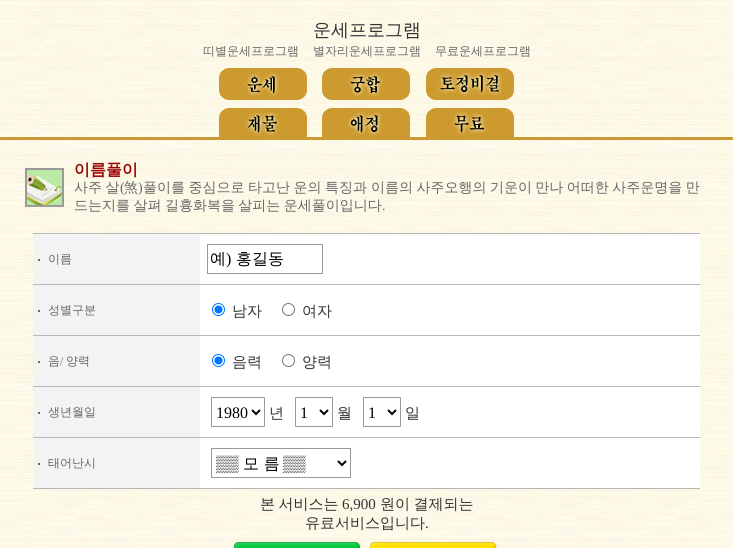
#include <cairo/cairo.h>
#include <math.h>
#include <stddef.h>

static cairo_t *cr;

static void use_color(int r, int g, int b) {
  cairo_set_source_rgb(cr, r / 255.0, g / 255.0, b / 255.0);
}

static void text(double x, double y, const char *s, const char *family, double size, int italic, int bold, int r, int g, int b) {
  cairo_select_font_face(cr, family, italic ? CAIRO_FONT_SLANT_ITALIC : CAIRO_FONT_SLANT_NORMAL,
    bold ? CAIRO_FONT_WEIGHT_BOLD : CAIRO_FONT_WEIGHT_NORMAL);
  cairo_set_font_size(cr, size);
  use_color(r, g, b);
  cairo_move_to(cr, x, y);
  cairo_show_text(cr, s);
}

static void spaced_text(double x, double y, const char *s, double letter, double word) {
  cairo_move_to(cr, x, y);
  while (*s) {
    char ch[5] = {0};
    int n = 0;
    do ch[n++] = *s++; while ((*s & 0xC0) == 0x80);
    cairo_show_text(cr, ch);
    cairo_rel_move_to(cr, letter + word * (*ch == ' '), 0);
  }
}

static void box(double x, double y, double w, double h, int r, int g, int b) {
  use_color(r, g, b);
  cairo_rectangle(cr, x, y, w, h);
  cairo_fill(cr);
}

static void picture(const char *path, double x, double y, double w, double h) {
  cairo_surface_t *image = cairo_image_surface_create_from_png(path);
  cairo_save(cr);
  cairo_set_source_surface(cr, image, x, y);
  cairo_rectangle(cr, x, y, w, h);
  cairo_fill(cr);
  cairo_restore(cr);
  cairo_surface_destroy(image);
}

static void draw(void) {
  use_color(255, 255, 255);
  cairo_paint(cr);
  picture("img_01.png", 0, 0, 733, 548);
  picture("img_02.png", 0, 18, 733, 42);
  picture("img_03.png", 0, 60, 733, 40);
  picture("img_04.png", 219, 68, 88, 32);
  picture("img_05.png", 322, 68, 88, 32);
  picture("img_06.png", 426, 68, 88, 32);
  picture("img_07.png", 0, 100, 733, 40);
  picture("img_08.png", 219, 108, 88, 29);
  picture("img_09.png", 322, 108, 88, 29);
  picture("img_10.png", 426, 108, 88, 29);
  picture("img_11.png", 25, 168, 39, 39);
  box(33, 234, 167, 254, 243, 243, 243);
  box(33, 233, 667, 1, 185, 184, 184);
  box(38, 259, 2, 2, 102, 102, 102);
  box(200, 234, 500, 50, 255, 255, 255);
  cairo_rectangle(cr, 207.5, 244.5, 115, 29);
  use_color(153, 153, 153);
  cairo_set_line_width(cr, 1);
  cairo_stroke(cr);
  box(33, 284, 667, 1, 185, 184, 184);
  box(38, 310, 2, 2, 102, 102, 102);
  box(200, 285, 500, 50, 255, 255, 255);
  cairo_arc(cr, 218.5, 309.5, 6, 0, 2 * M_PI);
  use_color(0, 117, 255);
  cairo_stroke(cr);
  cairo_arc(cr, 218.5, 309.5, 4, 0, 2 * M_PI);
  cairo_fill(cr);
  cairo_arc(cr, 288.5, 309.5, 6, 0, 2 * M_PI);
  use_color(118, 118, 118);
  cairo_stroke(cr);
  box(33, 335, 667, 1, 185, 184, 184);
  box(38, 361, 2, 2, 102, 102, 102);
  box(200, 336, 500, 50, 255, 255, 255);
  cairo_arc(cr, 218.5, 360.5, 6, 0, 2 * M_PI);
  use_color(0, 117, 255);
  cairo_stroke(cr);
  cairo_arc(cr, 218.5, 360.5, 4, 0, 2 * M_PI);
  cairo_fill(cr);
  cairo_arc(cr, 288.5, 360.5, 6, 0, 2 * M_PI);
  use_color(118, 118, 118);
  cairo_stroke(cr);
  box(33, 386, 667, 1, 185, 184, 184);
  box(38, 412, 2, 2, 102, 102, 102);
  box(200, 387, 500, 50, 255, 255, 255);
  cairo_rectangle(cr, 211.5, 397.5, 53, 29);
  use_color(153, 153, 153);
  cairo_stroke(cr);
  cairo_new_path(cr);
  cairo_move_to(cr, 252, 410);
  cairo_line_to(cr, 256, 414);
  cairo_line_to(cr, 260, 410);
  use_color(0, 0, 0);
  cairo_set_line_width(cr, 2);
  cairo_stroke(cr);
  cairo_rectangle(cr, 295.5, 397.5, 37, 29);
  use_color(153, 153, 153);
  cairo_set_line_width(cr, 1);
  cairo_stroke(cr);
  cairo_new_path(cr);
  cairo_move_to(cr, 320, 410);
  cairo_line_to(cr, 324, 414);
  cairo_line_to(cr, 328, 410);
  use_color(0, 0, 0);
  cairo_set_line_width(cr, 2);
  cairo_stroke(cr);
  cairo_rectangle(cr, 363.5, 397.5, 37, 29);
  use_color(153, 153, 153);
  cairo_set_line_width(cr, 1);
  cairo_stroke(cr);
  cairo_new_path(cr);
  cairo_move_to(cr, 388, 410);
  cairo_line_to(cr, 392, 414);
  cairo_line_to(cr, 396, 410);
  use_color(0, 0, 0);
  cairo_set_line_width(cr, 2);
  cairo_stroke(cr);
  box(33, 437, 667, 1, 185, 184, 184);
  box(38, 463, 2, 2, 102, 102, 102);
  box(200, 438, 500, 50, 255, 255, 255);
  cairo_rectangle(cr, 211.5, 448.5, 139, 29);
  use_color(153, 153, 153);
  cairo_set_line_width(cr, 1);
  cairo_stroke(cr);
  cairo_new_path(cr);
  cairo_move_to(cr, 338, 461);
  cairo_line_to(cr, 342, 465);
  cairo_line_to(cr, 346, 461);
  use_color(0, 0, 0);
  cairo_set_line_width(cr, 2);
  cairo_stroke(cr);
  box(33, 488, 667, 1, 185, 184, 184);
  picture("img_12.png", 33, 489, 667, 50);
  picture("img_13.png", 33, 539, 667, 9);
  picture("img_14.png", 234, 542, 128, 6);
  picture("img_15.png", 370, 542, 129, 6);
  text(313, 36, "운세프로그램", "WenQuanYi Zen Hei Medium", 18, 0, 0, 51, 51, 51);
  text(203, 55, "띠별운세프로그램", "WenQuanYi Zen Hei Medium", 12, 0, 0, 102, 102, 102);
  text(313, 55, "별자리운세프로그램", "WenQuanYi Zen Hei Medium", 12, 0, 0, 102, 102, 102);
  text(435, 55, "무료운세프로그램", "WenQuanYi Zen Hei Medium", 12, 0, 0, 102, 102, 102);
  text(74, 175, "이름풀이", "WenQuanYi Zen Hei", 16, 0, 1, 153, 0, 0);
  cairo_select_font_face(cr, "WenQuanYi Zen Hei Medium", CAIRO_FONT_SLANT_NORMAL, CAIRO_FONT_WEIGHT_NORMAL);
  cairo_set_font_size(cr, 14);
  use_color(102, 102, 102);
  spaced_text(74, 192, "사주 살", 0, -0.75);
  text(120, 192, "(", "Liberation Serif", 14, 0, 0, 102, 102, 102);
  text(124, 192, "煞", "WenQuanYi Zen Hei Medium", 14, 0, 0, 102, 102, 102);
  text(138, 192, ")", "Liberation Serif", 14, 0, 0, 102, 102, 102);
  cairo_select_font_face(cr, "WenQuanYi Zen Hei Medium", CAIRO_FONT_SLANT_NORMAL, CAIRO_FONT_WEIGHT_NORMAL);
  spaced_text(143, 192, "풀이를 중심으로", 0, -0.75);
  spaced_text(248, 192, "타고난 운의 특징과", 0, -0.75);
  spaced_text(371, 192, "이름의 사주오행의 기운이 만나 어떠한 사주운명을 만", 0, -0.75);
  spaced_text(74, 210, "드는지를 살펴 길흉화복을 살피는 운세풀이입니다", 0, -0.75);
  text(382, 210, ".", "Liberation Serif", 14, 0, 0, 102, 102, 102);
  text(48, 263, "이름", "WenQuanYi Zen Hei Medium", 12, 0, 0, 102, 102, 102);
  text(210, 264, "예", "WenQuanYi Zen Hei Medium", 16, 0, 0, 0, 0, 0);
  text(226, 264, ")", "Liberation Serif", 16, 0, 0, 0, 0, 0);
  text(236, 264, "홍길동", "WenQuanYi Zen Hei Medium", 16, 0, 0, 0, 0, 0);
  text(48, 314, "성별구분", "WenQuanYi Zen Hei Medium", 12, 0, 0, 102, 102, 102);
  text(232, 316, "남자", "WenQuanYi Zen Hei Medium", 15, 0, 0, 51, 51, 51);
  text(302, 316, "여자", "WenQuanYi Zen Hei Medium", 15, 0, 0, 51, 51, 51);
  text(48, 365, "음", "WenQuanYi Zen Hei Medium", 12, 0, 0, 102, 102, 102);
  text(60, 365, "/", "Liberation Serif", 12, 0, 0, 102, 102, 102);
  text(66, 365, "양력", "WenQuanYi Zen Hei Medium", 12, 0, 0, 102, 102, 102);
  text(232, 367, "음력", "WenQuanYi Zen Hei Medium", 15, 0, 0, 51, 51, 51);
  text(302, 367, "양력", "WenQuanYi Zen Hei Medium", 15, 0, 0, 51, 51, 51);
  text(48, 416, "생년월일", "WenQuanYi Zen Hei Medium", 12, 0, 0, 102, 102, 102);
  text(216, 418, "1980", "Liberation Serif", 16, 0, 0, 0, 0, 0);
  text(269, 418, "년", "WenQuanYi Zen Hei Medium", 15, 0, 0, 51, 51, 51);
  text(300, 418, "1", "Liberation Serif", 16, 0, 0, 0, 0, 0);
  text(337, 418, "월", "WenQuanYi Zen Hei Medium", 15, 0, 0, 51, 51, 51);
  text(368, 418, "1", "Liberation Serif", 16, 0, 0, 0, 0, 0);
  text(405, 418, "일", "WenQuanYi Zen Hei Medium", 15, 0, 0, 51, 51, 51);
  text(48, 467, "태어난시", "WenQuanYi Zen Hei Medium", 12, 0, 0, 102, 102, 102);
  cairo_save(cr);
  cairo_rectangle(cr, 216, 454, 118, 19);
  cairo_clip(cr);
  text(216, 469, "▒▒", "Liberation Serif", 16, 0, 0, 0, 0, 0);
  cairo_restore(cr);
  text(243, 469, "모 름", "WenQuanYi Zen Hei Medium", 16, 0, 0, 0, 0, 0);
  cairo_save(cr);
  cairo_rectangle(cr, 216, 454, 118, 19);
  cairo_clip(cr);
  text(283, 469, "▒▒", "Liberation Serif", 16, 0, 0, 0, 0, 0);
  cairo_restore(cr);
  cairo_set_font_size(cr, 15);
  use_color(51, 51, 51);
  spaced_text(260, 509, "본 서비스는", 0, -1);
  text(342, 509, "6,900", "Liberation Serif", 15, 0, 0, 51, 51, 51);
  cairo_select_font_face(cr, "WenQuanYi Zen Hei Medium", CAIRO_FONT_SLANT_NORMAL, CAIRO_FONT_WEIGHT_NORMAL);
  spaced_text(380, 509, "원이 결제되는", 0, -1);
  text(305, 528, "유료서비스입니다", "WenQuanYi Zen Hei Medium", 15, 0, 0, 51, 51, 51);
  text(425, 528, ".", "Liberation Serif", 15, 0, 0, 51, 51, 51);
}

int main(void) {
  cairo_surface_t *surface = cairo_image_surface_create(CAIRO_FORMAT_RGB24, 733, 548);
  cr = cairo_create(surface);
  cairo_font_options_t *options = cairo_font_options_create();
  cairo_font_options_set_hint_metrics(options, CAIRO_HINT_METRICS_OFF);
  cairo_font_options_set_hint_style(options, CAIRO_HINT_STYLE_NONE);
  cairo_set_font_options(cr, options);
  cairo_set_miter_limit(cr, 4);
  draw();
  cairo_surface_write_to_png(surface, "out.png");
  cairo_font_options_destroy(options);
  cairo_destroy(cr);
  cairo_surface_destroy(surface);
  return 0;
}
